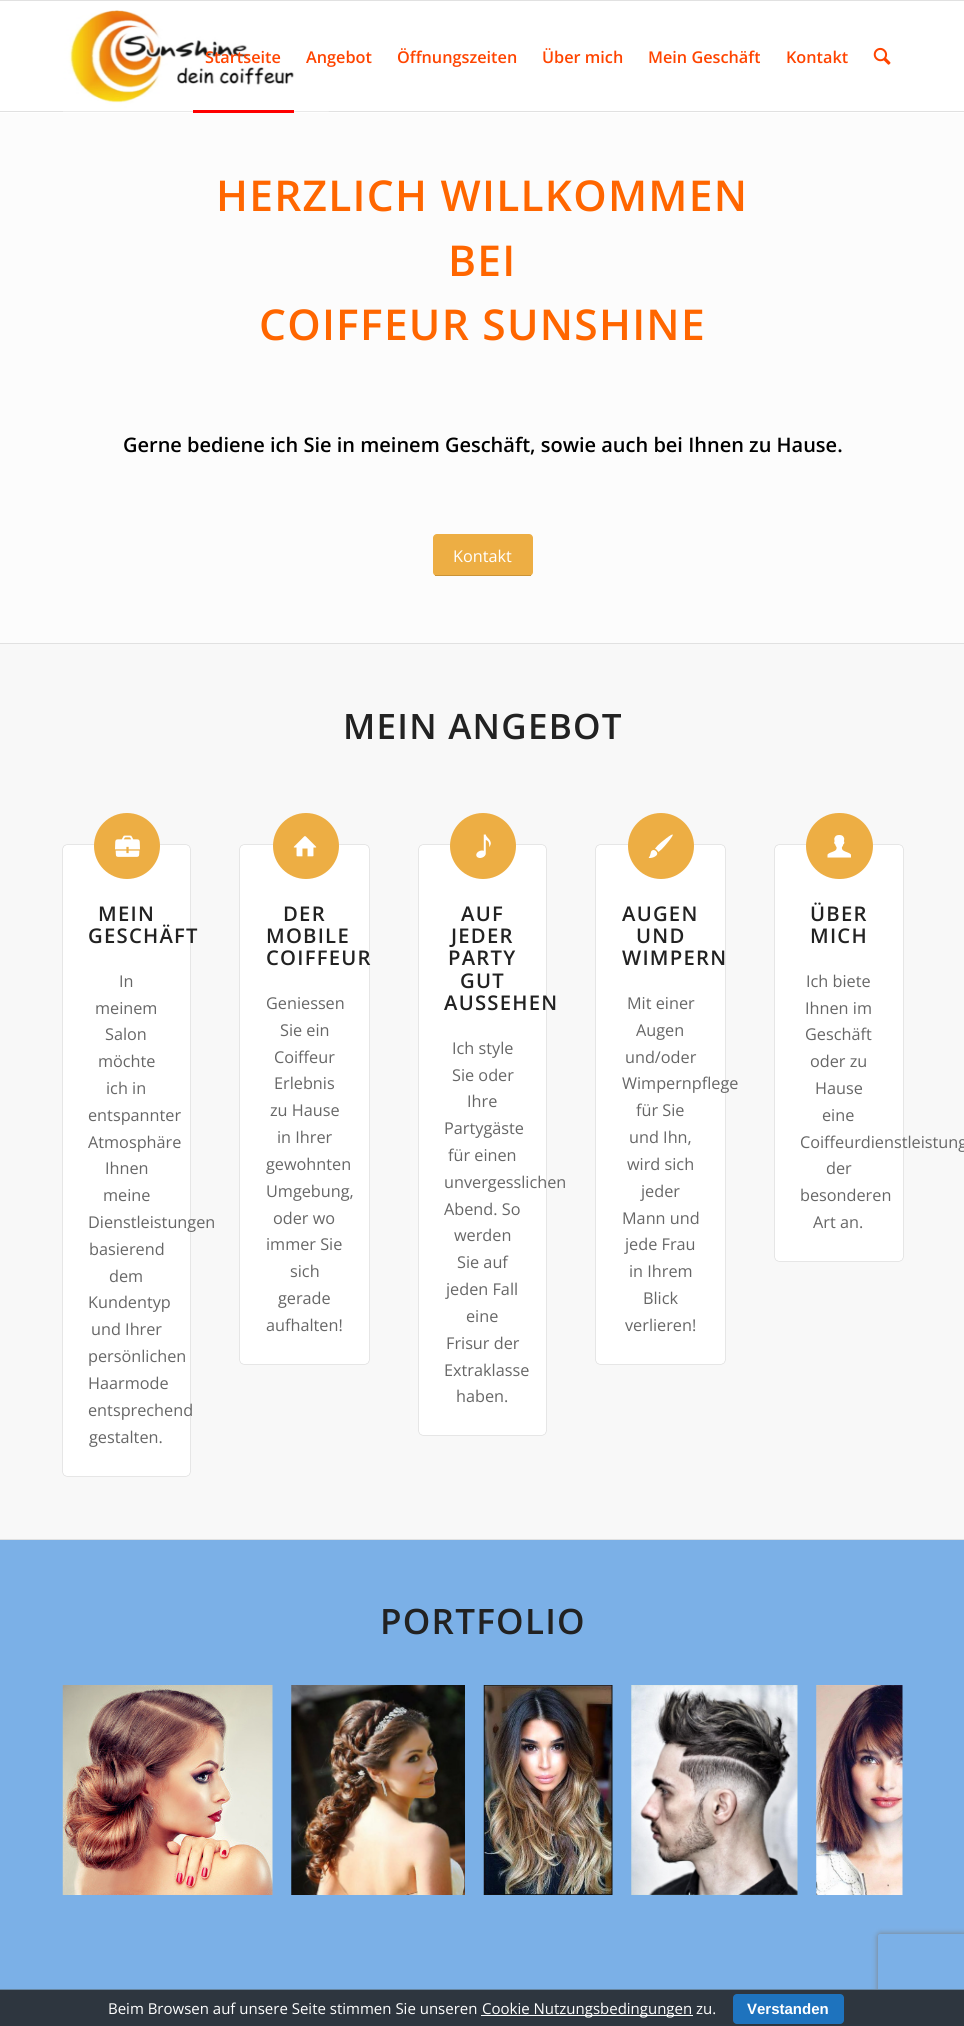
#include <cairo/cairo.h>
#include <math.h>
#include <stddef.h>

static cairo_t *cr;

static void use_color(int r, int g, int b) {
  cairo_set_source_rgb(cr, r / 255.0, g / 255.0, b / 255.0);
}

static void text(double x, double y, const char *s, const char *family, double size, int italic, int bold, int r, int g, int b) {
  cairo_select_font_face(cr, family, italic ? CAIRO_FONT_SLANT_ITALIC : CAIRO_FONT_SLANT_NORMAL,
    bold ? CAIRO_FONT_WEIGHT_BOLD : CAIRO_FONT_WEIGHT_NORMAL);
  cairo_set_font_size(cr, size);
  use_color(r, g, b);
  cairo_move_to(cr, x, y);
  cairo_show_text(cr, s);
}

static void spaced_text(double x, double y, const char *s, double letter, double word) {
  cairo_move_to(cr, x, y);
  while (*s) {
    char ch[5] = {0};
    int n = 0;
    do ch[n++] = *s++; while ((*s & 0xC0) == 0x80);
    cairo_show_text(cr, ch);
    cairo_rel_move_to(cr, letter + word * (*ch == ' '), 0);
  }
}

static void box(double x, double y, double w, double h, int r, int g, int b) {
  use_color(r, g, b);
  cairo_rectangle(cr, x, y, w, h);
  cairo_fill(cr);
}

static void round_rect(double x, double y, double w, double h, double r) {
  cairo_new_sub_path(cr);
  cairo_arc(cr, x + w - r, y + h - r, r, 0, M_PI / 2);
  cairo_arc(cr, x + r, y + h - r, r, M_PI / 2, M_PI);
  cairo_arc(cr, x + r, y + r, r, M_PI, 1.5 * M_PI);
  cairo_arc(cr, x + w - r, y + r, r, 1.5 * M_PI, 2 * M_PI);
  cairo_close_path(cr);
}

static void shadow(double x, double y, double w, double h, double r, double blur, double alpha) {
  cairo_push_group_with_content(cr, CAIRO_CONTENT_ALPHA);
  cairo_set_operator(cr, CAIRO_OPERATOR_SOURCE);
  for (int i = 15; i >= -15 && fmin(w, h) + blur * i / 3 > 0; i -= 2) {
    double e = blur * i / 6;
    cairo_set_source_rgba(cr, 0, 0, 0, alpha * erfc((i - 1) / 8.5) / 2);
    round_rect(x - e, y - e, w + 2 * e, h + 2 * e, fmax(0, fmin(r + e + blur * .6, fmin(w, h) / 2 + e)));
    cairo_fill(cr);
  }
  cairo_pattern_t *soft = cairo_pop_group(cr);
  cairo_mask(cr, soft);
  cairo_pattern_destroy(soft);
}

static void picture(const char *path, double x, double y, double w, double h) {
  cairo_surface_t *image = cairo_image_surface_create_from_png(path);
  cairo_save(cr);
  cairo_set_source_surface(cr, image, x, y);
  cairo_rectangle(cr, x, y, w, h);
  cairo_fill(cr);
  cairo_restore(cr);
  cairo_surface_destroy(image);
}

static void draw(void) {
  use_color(123, 176, 231);
  cairo_paint(cr);
  box(0, 1, 964, 112, 255, 255, 255);
  box(0, 0, 964, 1, 225, 225, 225);
  box(0, 111, 964, 1, 225, 225, 225);
  picture("img_01.png", 63, 10, 266, 102);
  box(193, 110, 101, 3, 255, 0, 0);
  picture("img_02.png", 873, 47, 18, 18);
  box(0, 113, 964, 530, 252, 252, 252);
  use_color(237, 174, 68);
  round_rect(433, 534, 100, 42, 4);
  cairo_fill(cr);
  box(435, 575, 96, 1, 202, 147, 54);
  box(0, 644, 964, 895, 248, 248, 248);
  box(0, 643, 964, 1, 225, 225, 225);
  use_color(0, 0, 0);
  shadow(63, 845, 127, 631, 4, 0.5, 0.3);
  use_color(255, 255, 255);
  round_rect(63, 845, 127, 631, 4);
  cairo_fill(cr);
  use_color(237, 174, 68);
  cairo_arc(cr, 127, 846, 33, 0, 2 * M_PI);
  cairo_fill(cr);
  picture("img_03.png", 115, 835, 25, 22);
  use_color(0, 0, 0);
  shadow(240, 845, 129, 519, 4, 0.5, 0.3);
  use_color(255, 255, 255);
  round_rect(240, 845, 129, 519, 4);
  cairo_fill(cr);
  use_color(237, 174, 68);
  cairo_arc(cr, 306, 846, 33, 0, 2 * M_PI);
  cairo_fill(cr);
  picture("img_04.png", 293, 836, 24, 21);
  use_color(0, 0, 0);
  shadow(419, 845, 127, 590, 4, 0.5, 0.3);
  use_color(255, 255, 255);
  round_rect(419, 845, 127, 590, 4);
  cairo_fill(cr);
  use_color(237, 174, 68);
  cairo_arc(cr, 483, 846, 33, 0, 2 * M_PI);
  cairo_fill(cr);
  picture("img_05.png", 476, 834, 15, 24);
  use_color(0, 0, 0);
  shadow(596, 845, 129, 519, 4, 0.5, 0.3);
  use_color(255, 255, 255);
  round_rect(596, 845, 129, 519, 4);
  cairo_fill(cr);
  use_color(237, 174, 68);
  cairo_arc(cr, 661, 846, 33, 0, 2 * M_PI);
  cairo_fill(cr);
  picture("img_06.png", 648, 834, 25, 24);
  use_color(0, 0, 0);
  shadow(775, 845, 128, 416, 4, 0.5, 0.3);
  use_color(255, 255, 255);
  round_rect(775, 845, 128, 416, 4);
  cairo_fill(cr);
  use_color(237, 174, 68);
  round_rect(806, 813, 67, 66, 33);
  cairo_fill(cr);
  picture("img_07.png", 827, 835, 24, 23);
  box(0, 1539, 964, 1, 225, 225, 225);
  picture("img_08.png", 62, 1685, 211, 210);
  picture("img_09.png", 291, 1685, 174, 210);
  picture("img_10.png", 483, 1685, 130, 210);
  picture("img_11.png", 631, 1685, 167, 210);
  picture("img_12.png", 816, 1685, 87, 210);
  box(0, 1989, 964, 1, 103, 134, 161);
  cairo_save(cr);
  cairo_set_fill_rule(cr, CAIRO_FILL_RULE_EVEN_ODD);
  cairo_new_path(cr);
  cairo_move_to(cr, 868, 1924);
  cairo_line_to(cr, 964, 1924);
  cairo_line_to(cr, 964, 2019);
  cairo_line_to(cr, 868, 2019);
  cairo_close_path(cr);
  cairo_move_to(cr, 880.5, 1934);
  cairo_line_to(cr, 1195.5, 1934);
  cairo_curve_to(cr, 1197, 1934, 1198, 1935, 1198, 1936.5);
  cairo_line_to(cr, 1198, 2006.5);
  cairo_curve_to(cr, 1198, 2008, 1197, 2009, 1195.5, 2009);
  cairo_line_to(cr, 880.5, 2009);
  cairo_curve_to(cr, 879, 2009, 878, 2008, 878, 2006.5);
  cairo_line_to(cr, 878, 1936.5);
  cairo_curve_to(cr, 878, 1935, 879, 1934, 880.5, 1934);
  cairo_close_path(cr);
  cairo_clip(cr);
  use_color(128, 128, 128);
  shadow(878, 1934, 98, 75, 2.5, 3, 1);
  cairo_restore(cr);
  box(0, 1990, 964, 36, 46, 54, 63);
  box(481, 2015, 212, 1, 255, 255, 255);
  use_color(30, 115, 190);
  round_rect(733, 1994, 111, 30, 4);
  cairo_fill(cr);
  text(205, 63, "Startseite", "Open Sans SemiBold", 16.25, 0, 0, 255, 68, 0);
  text(306, 63, "Angebot", "Open Sans SemiBold", 16.25, 0, 0, 255, 68, 0);
  text(397, 63, "Öffnungszeiten", "Open Sans SemiBold", 16.25, 0, 0, 255, 68, 0);
  text(542, 63, "Über mich", "Open Sans SemiBold", 16.25, 0, 0, 255, 68, 0);
  text(648, 63, "Mein Geschäft", "Open Sans SemiBold", 16.25, 0, 0, 255, 68, 0);
  text(786, 63, "Kontakt", "Open Sans SemiBold", 16.25, 0, 0, 255, 68, 0);
  cairo_set_font_size(cr, 42.5);
  use_color(255, 102, 0);
  spaced_text(216, 211, "HERZLICH WILLKOMMEN", 1.25, 0);
  spaced_text(448, 276, "BEI", 1.25, 0);
  spaced_text(259, 340, "COIFFEUR SUNSHINE", 1.25, 0);
  text(123, 452, "Gerne bediene ich Sie in meinem Geschäft, sowie auch bei Ihnen zu Hause.", "Open Sans SemiBold", 20, 0, 0, 0, 0, 0);
  text(453, 562, "Kontakt", "Open Sans", 16.25, 0, 0, 255, 255, 255);
  cairo_select_font_face(cr, "Open Sans SemiBold", CAIRO_FONT_SLANT_NORMAL, CAIRO_FONT_WEIGHT_NORMAL);
  cairo_set_font_size(cr, 35);
  use_color(34, 34, 34);
  spaced_text(343, 739, "MEIN ANGEBOT", 1.25, 0);
  cairo_set_font_size(cr, 20.25);
  spaced_text(98, 921, "MEIN", 1.25, 0);
  spaced_text(88, 943, "GESCHÄFT", 1.25, 0);
  text(119, 987, "In", "Open Sans", 16.25, 0, 0, 102, 102, 102);
  text(95, 1014, "meinem", "Open Sans", 16.25, 0, 0, 102, 102, 102);
  text(105, 1040, "Salon", "Open Sans", 16.25, 0, 0, 102, 102, 102);
  text(98, 1067, "möchte", "Open Sans", 16.25, 0, 0, 102, 102, 102);
  text(106, 1094, "ich in", "Open Sans", 16.25, 0, 0, 102, 102, 102);
  text(88, 1121, "entspannter", "Open Sans", 16.25, 0, 0, 102, 102, 102);
  text(88, 1148, "Atmosphäre", "Open Sans", 16.25, 0, 0, 102, 102, 102);
  text(105, 1174, "Ihnen", "Open Sans", 16.25, 0, 0, 102, 102, 102);
  text(103, 1201, "meine", "Open Sans", 16.25, 0, 0, 102, 102, 102);
  text(88, 1228, "Dienstleistungen", "Open Sans", 16.25, 0, 0, 102, 102, 102);
  text(89, 1255, "basierend", "Open Sans", 16.25, 0, 0, 102, 102, 102);
  text(109, 1282, "dem", "Open Sans", 16.25, 0, 0, 102, 102, 102);
  text(88, 1308, "Kundentyp", "Open Sans", 16.25, 0, 0, 102, 102, 102);
  text(91, 1335, "und Ihrer", "Open Sans", 16.25, 0, 0, 102, 102, 102);
  text(88, 1362, "persönlichen", "Open Sans", 16.25, 0, 0, 102, 102, 102);
  text(88, 1389, "Haarmode", "Open Sans", 16.25, 0, 0, 102, 102, 102);
  text(88, 1416, "entsprechend", "Open Sans", 16.25, 0, 0, 102, 102, 102);
  text(89, 1443, "gestalten.", "Open Sans", 16.25, 0, 0, 102, 102, 102);
  cairo_select_font_face(cr, "Open Sans SemiBold", CAIRO_FONT_SLANT_NORMAL, CAIRO_FONT_WEIGHT_NORMAL);
  cairo_set_font_size(cr, 20.25);
  use_color(34, 34, 34);
  spaced_text(283, 921, "DER", 1.25, 0);
  spaced_text(266, 943, "MOBILE", 1.25, 0);
  spaced_text(266, 965, "COIFFEUR", 1.25, 0);
  text(266, 1009, "Geniessen", "Open Sans", 16.25, 0, 0, 102, 102, 102);
  text(280, 1036, "Sie ein", "Open Sans", 16.25, 0, 0, 102, 102, 102);
  text(274, 1063, "Coiffeur", "Open Sans", 16.25, 0, 0, 102, 102, 102);
  text(274, 1089, "Erlebnis", "Open Sans", 16.25, 0, 0, 102, 102, 102);
  text(270, 1116, "zu Hause", "Open Sans", 16.25, 0, 0, 102, 102, 102);
  text(277, 1143, "in Ihrer", "Open Sans", 16.25, 0, 0, 102, 102, 102);
  text(266, 1170, "gewohnten", "Open Sans", 16.25, 0, 0, 102, 102, 102);
  text(266, 1197, "Umgebung,", "Open Sans", 16.25, 0, 0, 102, 102, 102);
  text(273, 1224, "oder wo", "Open Sans", 16.25, 0, 0, 102, 102, 102);
  text(266, 1250, "immer Sie", "Open Sans", 16.25, 0, 0, 102, 102, 102);
  text(290, 1277, "sich", "Open Sans", 16.25, 0, 0, 102, 102, 102);
  text(278, 1304, "gerade", "Open Sans", 16.25, 0, 0, 102, 102, 102);
  text(266, 1331, "aufhalten!", "Open Sans", 16.25, 0, 0, 102, 102, 102);
  cairo_select_font_face(cr, "Open Sans SemiBold", CAIRO_FONT_SLANT_NORMAL, CAIRO_FONT_WEIGHT_NORMAL);
  cairo_set_font_size(cr, 20.25);
  use_color(34, 34, 34);
  spaced_text(461, 921, "AUF", 1.25, 0);
  spaced_text(451, 943, "JEDER", 1.25, 0);
  spaced_text(448, 965, "PARTY", 1.25, 0);
  spaced_text(460, 988, "GUT", 1.25, 0);
  spaced_text(444, 1010, "AUSSEHEN", 1.25, 0);
  text(452, 1054, "Ich style", "Open Sans", 16.25, 0, 0, 102, 102, 102);
  text(452, 1081, "Sie oder", "Open Sans", 16.25, 0, 0, 102, 102, 102);
  text(467, 1107, "Ihre", "Open Sans", 16.25, 0, 0, 102, 102, 102);
  text(444, 1134, "Partygäste", "Open Sans", 16.25, 0, 0, 102, 102, 102);
  text(448, 1161, "für einen", "Open Sans", 16.25, 0, 0, 102, 102, 102);
  text(444, 1188, "unvergesslichen", "Open Sans", 16.25, 0, 0, 102, 102, 102);
  text(444, 1215, "Abend. So", "Open Sans", 16.25, 0, 0, 102, 102, 102);
  text(454, 1241, "werden", "Open Sans", 16.25, 0, 0, 102, 102, 102);
  text(457, 1268, "Sie auf", "Open Sans", 16.25, 0, 0, 102, 102, 102);
  text(446, 1295, "jeden Fall", "Open Sans", 16.25, 0, 0, 102, 102, 102);
  text(466, 1322, "eine", "Open Sans", 16.25, 0, 0, 102, 102, 102);
  text(446, 1349, "Frisur der", "Open Sans", 16.25, 0, 0, 102, 102, 102);
  text(444, 1376, "Extraklasse", "Open Sans", 16.25, 0, 0, 102, 102, 102);
  text(456, 1402, "haben.", "Open Sans", 16.25, 0, 0, 102, 102, 102);
  cairo_select_font_face(cr, "Open Sans SemiBold", CAIRO_FONT_SLANT_NORMAL, CAIRO_FONT_WEIGHT_NORMAL);
  cairo_set_font_size(cr, 20.25);
  use_color(34, 34, 34);
  spaced_text(622, 921, "AUGEN", 1.25, 0);
  spaced_text(636, 943, "UND", 1.25, 0);
  spaced_text(622, 965, "WIMPERN", 1.25, 0);
  text(627, 1009, "Mit einer", "Open Sans", 16.25, 0, 0, 102, 102, 102);
  text(636, 1036, "Augen", "Open Sans", 16.25, 0, 0, 102, 102, 102);
  text(625, 1063, "und/oder", "Open Sans", 16.25, 0, 0, 102, 102, 102);
  text(622, 1089, "Wimpernpflege", "Open Sans", 16.25, 0, 0, 102, 102, 102);
  text(636, 1116, "für Sie", "Open Sans", 16.25, 0, 0, 102, 102, 102);
  text(629, 1143, "und Ihn,", "Open Sans", 16.25, 0, 0, 102, 102, 102);
  text(627, 1170, "wird sich", "Open Sans", 16.25, 0, 0, 102, 102, 102);
  text(641, 1197, "jeder", "Open Sans", 16.25, 0, 0, 102, 102, 102);
  text(622, 1224, "Mann und", "Open Sans", 16.25, 0, 0, 102, 102, 102);
  text(625, 1250, "jede Frau", "Open Sans", 16.25, 0, 0, 102, 102, 102);
  text(629, 1277, "in Ihrem", "Open Sans", 16.25, 0, 0, 102, 102, 102);
  text(643, 1304, "Blick", "Open Sans", 16.25, 0, 0, 102, 102, 102);
  text(625, 1331, "verlieren!", "Open Sans", 16.25, 0, 0, 102, 102, 102);
  cairo_select_font_face(cr, "Open Sans SemiBold", CAIRO_FONT_SLANT_NORMAL, CAIRO_FONT_WEIGHT_NORMAL);
  cairo_set_font_size(cr, 20.25);
  use_color(34, 34, 34);
  spaced_text(810, 921, "ÜBER", 1.25, 0);
  spaced_text(810, 943, "MICH", 1.25, 0);
  text(806, 987, "Ich biete", "Open Sans", 16.25, 0, 0, 102, 102, 102);
  text(805, 1014, "Ihnen im", "Open Sans", 16.25, 0, 0, 102, 102, 102);
  text(805, 1040, "Geschäft", "Open Sans", 16.25, 0, 0, 102, 102, 102);
  text(810, 1067, "oder zu", "Open Sans", 16.25, 0, 0, 102, 102, 102);
  text(815, 1094, "Hause", "Open Sans", 16.25, 0, 0, 102, 102, 102);
  text(822, 1121, "eine", "Open Sans", 16.25, 0, 0, 102, 102, 102);
  text(800, 1148, "Coiffeurdienstleistung", "Open Sans", 16.25, 0, 0, 102, 102, 102);
  text(826, 1174, "der", "Open Sans", 16.25, 0, 0, 102, 102, 102);
  text(800, 1201, "besonderen", "Open Sans", 16.25, 0, 0, 102, 102, 102);
  text(813, 1228, "Art an.", "Open Sans", 16.25, 0, 0, 102, 102, 102);
  cairo_select_font_face(cr, "Open Sans SemiBold", CAIRO_FONT_SLANT_NORMAL, CAIRO_FONT_WEIGHT_NORMAL);
  cairo_set_font_size(cr, 35);
  use_color(34, 34, 34);
  spaced_text(380, 1634, "PORTFOLIO", 1.25, 0);
  text(108, 2014, "Beim Browsen auf unsere Seite stimmen Sie unseren", "Open Sans", 15, 0, 0, 255, 255, 255);
  text(482, 2014, "Cookie Nutzungsbedingungen zu.", "Open Sans", 15, 0, 0, 255, 255, 255);
  text(747, 2014, "Verstanden", "Liberation Sans", 15, 0, 1, 255, 255, 255);
}

int main(void) {
  cairo_surface_t *surface = cairo_image_surface_create(CAIRO_FORMAT_RGB24, 964, 2026);
  cr = cairo_create(surface);
  cairo_font_options_t *options = cairo_font_options_create();
  cairo_font_options_set_hint_metrics(options, CAIRO_HINT_METRICS_OFF);
  cairo_font_options_set_hint_style(options, CAIRO_HINT_STYLE_NONE);
  cairo_set_font_options(cr, options);
  cairo_set_miter_limit(cr, 4);
  draw();
  cairo_surface_write_to_png(surface, "out.png");
  cairo_font_options_destroy(options);
  cairo_destroy(cr);
  cairo_surface_destroy(surface);
  return 0;
}
